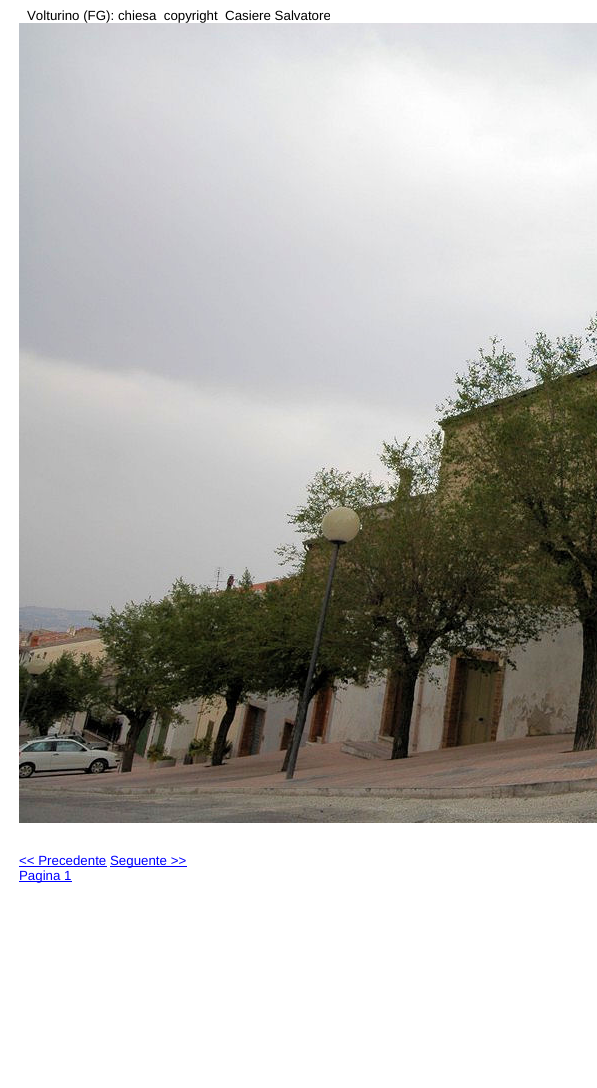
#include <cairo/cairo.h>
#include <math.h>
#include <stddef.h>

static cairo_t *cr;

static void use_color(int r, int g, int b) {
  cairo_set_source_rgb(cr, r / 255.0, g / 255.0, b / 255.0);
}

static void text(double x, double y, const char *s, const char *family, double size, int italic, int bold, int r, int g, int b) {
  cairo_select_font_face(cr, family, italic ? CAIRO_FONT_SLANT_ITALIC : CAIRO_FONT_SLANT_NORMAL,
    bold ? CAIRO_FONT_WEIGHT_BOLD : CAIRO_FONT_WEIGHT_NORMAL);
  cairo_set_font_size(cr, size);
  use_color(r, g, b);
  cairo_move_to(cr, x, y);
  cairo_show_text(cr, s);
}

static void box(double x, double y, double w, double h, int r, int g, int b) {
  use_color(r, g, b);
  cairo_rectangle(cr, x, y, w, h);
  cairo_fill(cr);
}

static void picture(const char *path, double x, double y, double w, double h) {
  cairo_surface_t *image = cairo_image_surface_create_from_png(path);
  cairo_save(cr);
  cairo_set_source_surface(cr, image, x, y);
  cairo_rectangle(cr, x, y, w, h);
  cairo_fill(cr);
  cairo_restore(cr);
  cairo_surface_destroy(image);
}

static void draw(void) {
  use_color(255, 255, 255);
  cairo_paint(cr);
  picture("img_01.png", 19, 23, 578, 800);
  box(19, 866, 88, 1, 0, 0, 255);
  box(110, 866, 77, 1, 0, 0, 255);
  box(19, 881, 53, 1, 0, 0, 255);
  text(27, 20, "Volturino (FG): chiesa  copyright  Casiere Salvatore", "Liberation Sans", 13.3, 0, 0, 0, 0, 0);
  text(19, 865, "<< Precedente", "Liberation Sans", 13.3, 0, 0, 0, 0, 255);
  text(110, 865, "Seguente >>", "Liberation Sans", 13.3, 0, 0, 0, 0, 255);
  text(19, 880, "Pagina 1", "Liberation Sans", 13.3, 0, 0, 0, 0, 255);
}

int main(void) {
  cairo_surface_t *surface = cairo_image_surface_create(CAIRO_FORMAT_RGB24, 597, 1088);
  cr = cairo_create(surface);
  cairo_font_options_t *options = cairo_font_options_create();
  cairo_font_options_set_hint_metrics(options, CAIRO_HINT_METRICS_OFF);
  cairo_font_options_set_hint_style(options, CAIRO_HINT_STYLE_NONE);
  cairo_set_font_options(cr, options);
  cairo_set_miter_limit(cr, 4);
  draw();
  cairo_surface_write_to_png(surface, "out.png");
  cairo_font_options_destroy(options);
  cairo_destroy(cr);
  cairo_surface_destroy(surface);
  return 0;
}
